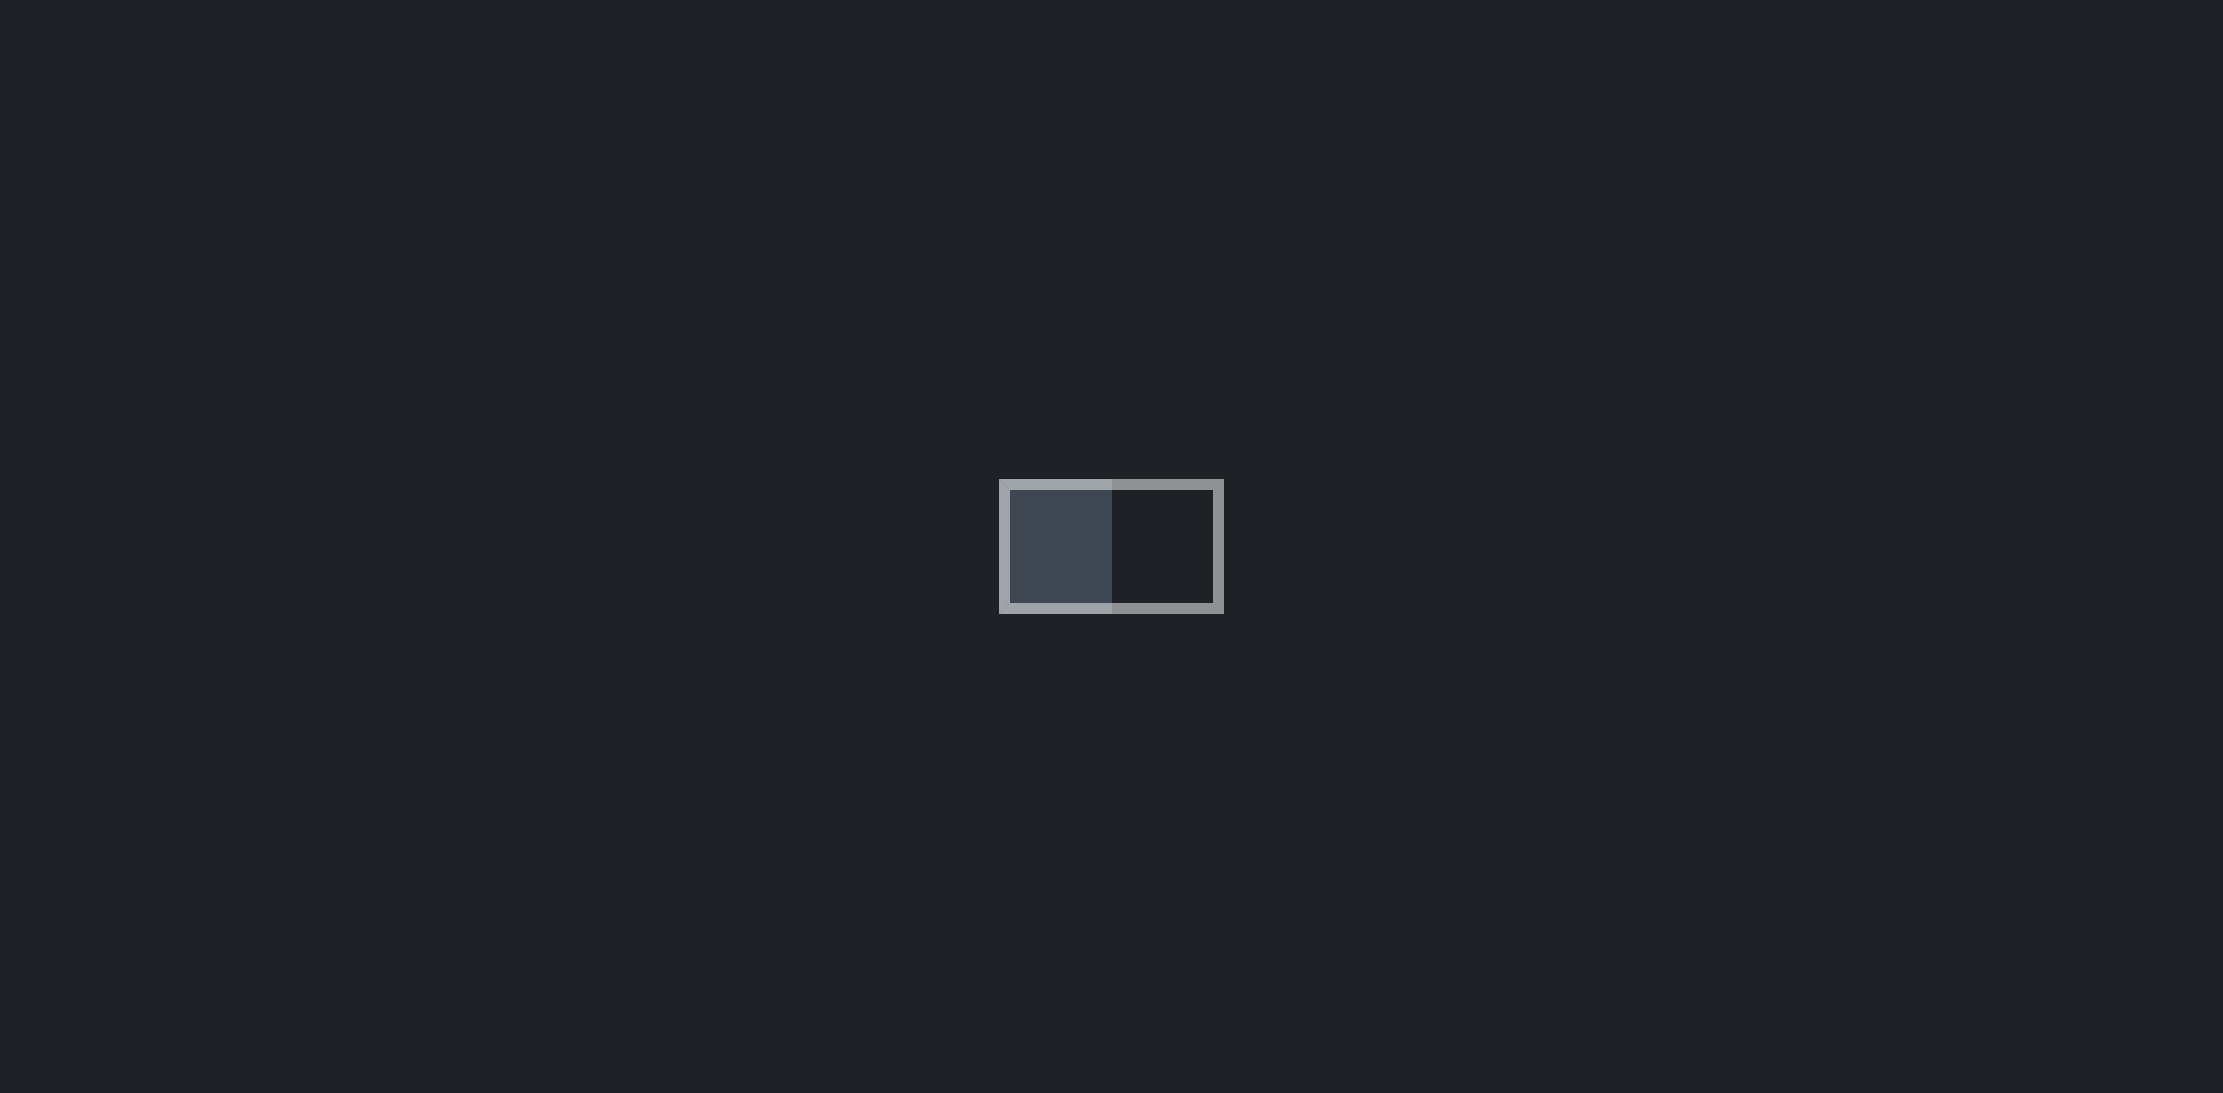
#include <cairo/cairo.h>
#include <math.h>
#include <stddef.h>

static cairo_t *cr;

static void use_color(int r, int g, int b) {
  cairo_set_source_rgb(cr, r / 255.0, g / 255.0, b / 255.0);
}

static void box(double x, double y, double w, double h, int r, int g, int b) {
  use_color(r, g, b);
  cairo_rectangle(cr, x, y, w, h);
  cairo_fill(cr);
}

static void draw(void) {
  use_color(30, 34, 39);
  cairo_paint(cr);
  cairo_rectangle(cr, 1004.5, 484.5, 214, 124);
  use_color(143, 145, 147);
  cairo_set_line_width(cr, 11);
  cairo_stroke(cr);
  box(999, 479, 113, 135, 63, 72, 82);
  use_color(159, 164, 169);
  cairo_new_path(cr);
  cairo_move_to(cr, 1112, 479);
  cairo_line_to(cr, 999, 479);
  cairo_line_to(cr, 1010, 490);
  cairo_line_to(cr, 1112, 490);
  cairo_close_path(cr);
  cairo_fill(cr);
  cairo_set_source_rgba(cr, 1, 1, 1, 0.5);
  cairo_new_path(cr);
  cairo_move_to(cr, 999, 479);
  cairo_line_to(cr, 999, 614);
  cairo_line_to(cr, 1010, 603);
  cairo_line_to(cr, 1010, 490);
  cairo_close_path(cr);
  cairo_fill(cr);
  cairo_new_path(cr);
  cairo_move_to(cr, 999, 614);
  cairo_line_to(cr, 1112, 614);
  cairo_line_to(cr, 1112, 603);
  cairo_line_to(cr, 1010, 603);
  cairo_close_path(cr);
  cairo_fill(cr);
}

int main(void) {
  cairo_surface_t *surface = cairo_image_surface_create(CAIRO_FORMAT_RGB24, 2223, 1093);
  cr = cairo_create(surface);
  cairo_font_options_t *options = cairo_font_options_create();
  cairo_font_options_set_hint_metrics(options, CAIRO_HINT_METRICS_OFF);
  cairo_font_options_set_hint_style(options, CAIRO_HINT_STYLE_NONE);
  cairo_set_font_options(cr, options);
  cairo_set_miter_limit(cr, 4);
  draw();
  cairo_surface_write_to_png(surface, "out.png");
  cairo_font_options_destroy(options);
  cairo_destroy(cr);
  cairo_surface_destroy(surface);
  return 0;
}
